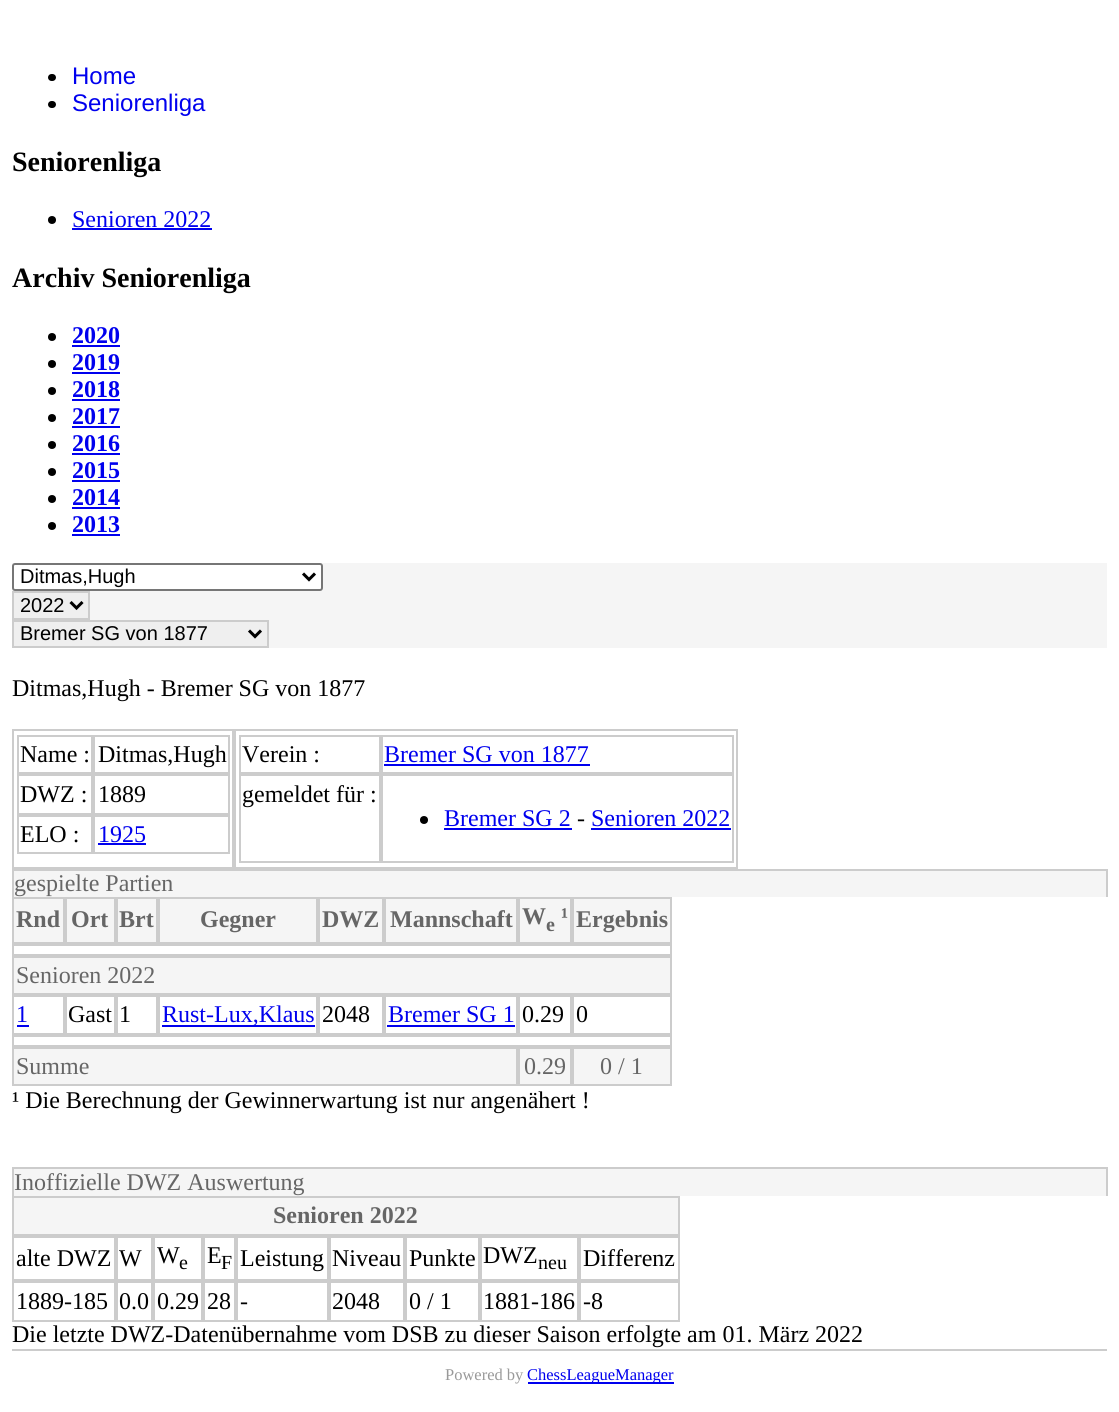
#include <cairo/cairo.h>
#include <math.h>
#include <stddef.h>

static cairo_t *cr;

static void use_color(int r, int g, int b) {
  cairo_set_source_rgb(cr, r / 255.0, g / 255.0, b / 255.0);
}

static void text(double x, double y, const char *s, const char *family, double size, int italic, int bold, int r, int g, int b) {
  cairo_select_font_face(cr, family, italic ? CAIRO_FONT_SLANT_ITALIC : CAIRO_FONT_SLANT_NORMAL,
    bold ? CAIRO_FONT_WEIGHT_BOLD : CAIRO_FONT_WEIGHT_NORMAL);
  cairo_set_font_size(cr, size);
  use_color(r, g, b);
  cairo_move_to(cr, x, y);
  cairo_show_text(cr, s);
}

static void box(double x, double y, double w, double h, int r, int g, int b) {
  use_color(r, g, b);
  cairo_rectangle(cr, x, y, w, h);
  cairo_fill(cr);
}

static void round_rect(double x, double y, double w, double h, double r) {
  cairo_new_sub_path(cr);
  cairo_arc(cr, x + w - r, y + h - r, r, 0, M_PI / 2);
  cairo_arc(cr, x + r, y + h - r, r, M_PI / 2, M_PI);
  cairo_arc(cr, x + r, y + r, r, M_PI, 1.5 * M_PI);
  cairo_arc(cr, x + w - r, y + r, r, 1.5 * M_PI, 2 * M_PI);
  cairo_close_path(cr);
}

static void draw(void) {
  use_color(255, 255, 255);
  cairo_paint(cr);
  use_color(0, 0, 0);
  round_rect(48, 74, 8, 7, 3.5);
  cairo_fill(cr);
  round_rect(48, 101, 8, 7, 3.5);
  cairo_fill(cr);
  cairo_arc(cr, 52, 220, 4, 0, 2 * M_PI);
  cairo_fill(cr);
  box(72, 228, 140, 2, 0, 0, 238);
  use_color(0, 0, 0);
  cairo_arc(cr, 52, 337, 4, 0, 2 * M_PI);
  cairo_fill(cr);
  box(72, 345, 48, 2, 0, 0, 238);
  use_color(0, 0, 0);
  cairo_arc(cr, 52, 364, 4, 0, 2 * M_PI);
  cairo_fill(cr);
  box(72, 372, 48, 2, 0, 0, 238);
  use_color(0, 0, 0);
  cairo_arc(cr, 52, 391, 4, 0, 2 * M_PI);
  cairo_fill(cr);
  box(72, 399, 48, 2, 0, 0, 238);
  use_color(0, 0, 0);
  cairo_arc(cr, 52, 418, 4, 0, 2 * M_PI);
  cairo_fill(cr);
  box(72, 426, 48, 2, 0, 0, 238);
  use_color(0, 0, 0);
  cairo_arc(cr, 52, 445, 4, 0, 2 * M_PI);
  cairo_fill(cr);
  box(72, 453, 48, 2, 0, 0, 238);
  use_color(0, 0, 0);
  cairo_arc(cr, 52, 472, 4, 0, 2 * M_PI);
  cairo_fill(cr);
  box(72, 480, 48, 2, 0, 0, 238);
  use_color(0, 0, 0);
  cairo_arc(cr, 52, 499, 4, 0, 2 * M_PI);
  cairo_fill(cr);
  box(72, 507, 48, 2, 0, 0, 238);
  use_color(0, 0, 0);
  cairo_arc(cr, 52, 526, 4, 0, 2 * M_PI);
  cairo_fill(cr);
  box(72, 534, 48, 2, 0, 0, 238);
  box(12, 563, 1095, 85, 245, 245, 245);
  use_color(255, 255, 255);
  round_rect(13, 564, 309, 26, 2);
  cairo_fill_preserve(cr);
  use_color(118, 118, 118);
  cairo_stroke(cr);
  cairo_new_path(cr);
  cairo_move_to(cr, 303, 573.5);
  cairo_line_to(cr, 309, 579.5);
  cairo_line_to(cr, 315, 573.5);
  use_color(0, 0, 0);
  cairo_set_line_width(cr, 3);
  cairo_stroke(cr);
  use_color(239, 239, 239);
  cairo_rectangle(cr, 13, 592, 76, 27);
  cairo_fill_preserve(cr);
  use_color(204, 204, 204);
  cairo_set_line_width(cr, 2);
  cairo_stroke(cr);
  cairo_new_path(cr);
  cairo_move_to(cr, 70.5, 602);
  cairo_line_to(cr, 76.5, 608);
  cairo_line_to(cr, 82.5, 602);
  use_color(0, 0, 0);
  cairo_set_line_width(cr, 3);
  cairo_stroke(cr);
  use_color(239, 239, 239);
  cairo_rectangle(cr, 13, 621, 255, 26);
  cairo_fill_preserve(cr);
  use_color(204, 204, 204);
  cairo_set_line_width(cr, 2);
  cairo_stroke(cr);
  cairo_new_path(cr);
  cairo_move_to(cr, 249, 630.5);
  cairo_line_to(cr, 255, 636.5);
  cairo_line_to(cr, 261, 630.5);
  use_color(0, 0, 0);
  cairo_set_line_width(cr, 3);
  cairo_stroke(cr);
  cairo_rectangle(cr, 13, 730, 220, 138);
  use_color(204, 204, 204);
  cairo_set_line_width(cr, 2);
  cairo_stroke(cr);
  cairo_rectangle(cr, 18, 736, 74, 37);
  cairo_stroke(cr);
  cairo_rectangle(cr, 94, 736, 135, 37);
  cairo_stroke(cr);
  cairo_rectangle(cr, 18, 775, 74, 39);
  cairo_stroke(cr);
  cairo_rectangle(cr, 94, 775, 135, 39);
  cairo_stroke(cr);
  cairo_rectangle(cr, 18, 816, 74, 37);
  cairo_stroke(cr);
  cairo_rectangle(cr, 94, 816, 135, 37);
  cairo_stroke(cr);
  box(98, 843, 48, 2, 0, 0, 238);
  cairo_rectangle(cr, 235, 730, 502, 138);
  use_color(204, 204, 204);
  cairo_stroke(cr);
  cairo_rectangle(cr, 240, 736, 140, 37);
  cairo_stroke(cr);
  cairo_rectangle(cr, 382, 736, 351, 37);
  cairo_stroke(cr);
  box(384, 764, 206, 2, 0, 0, 238);
  cairo_rectangle(cr, 240, 775, 140, 87);
  use_color(204, 204, 204);
  cairo_stroke(cr);
  cairo_rectangle(cr, 382, 775, 351, 87);
  cairo_stroke(cr);
  use_color(0, 0, 0);
  cairo_arc(cr, 424, 820, 4, 0, 2 * M_PI);
  cairo_fill(cr);
  box(444, 828, 128, 2, 0, 0, 238);
  box(591, 828, 140, 2, 0, 0, 238);
  box(14, 871, 1092, 26, 245, 245, 245);
  box(12, 869, 1095, 2, 204, 204, 204);
  box(1106, 869, 2, 28, 204, 204, 204);
  box(12, 869, 2, 28, 204, 204, 204);
  use_color(245, 245, 245);
  cairo_rectangle(cr, 13, 898, 51, 45);
  cairo_fill_preserve(cr);
  use_color(204, 204, 204);
  cairo_stroke(cr);
  use_color(245, 245, 245);
  cairo_rectangle(cr, 66, 898, 49, 45);
  cairo_fill_preserve(cr);
  use_color(204, 204, 204);
  cairo_stroke(cr);
  use_color(245, 245, 245);
  cairo_rectangle(cr, 117, 898, 40, 45);
  cairo_fill_preserve(cr);
  use_color(204, 204, 204);
  cairo_stroke(cr);
  use_color(245, 245, 245);
  cairo_rectangle(cr, 159, 898, 158, 45);
  cairo_fill_preserve(cr);
  use_color(204, 204, 204);
  cairo_stroke(cr);
  use_color(245, 245, 245);
  cairo_rectangle(cr, 319, 898, 64, 45);
  cairo_fill_preserve(cr);
  use_color(204, 204, 204);
  cairo_stroke(cr);
  use_color(245, 245, 245);
  cairo_rectangle(cr, 385, 898, 132, 45);
  cairo_fill_preserve(cr);
  use_color(204, 204, 204);
  cairo_stroke(cr);
  use_color(245, 245, 245);
  cairo_rectangle(cr, 519, 898, 52, 45);
  cairo_fill_preserve(cr);
  use_color(204, 204, 204);
  cairo_stroke(cr);
  use_color(245, 245, 245);
  cairo_rectangle(cr, 573, 898, 98, 45);
  cairo_fill_preserve(cr);
  use_color(204, 204, 204);
  cairo_stroke(cr);
  cairo_rectangle(cr, 13, 945, 658, 10);
  cairo_stroke(cr);
  use_color(245, 245, 245);
  cairo_rectangle(cr, 13, 957, 658, 37);
  cairo_fill_preserve(cr);
  use_color(204, 204, 204);
  cairo_stroke(cr);
  cairo_rectangle(cr, 13, 996, 51, 38);
  cairo_stroke(cr);
  box(17, 1025, 12, 2, 0, 0, 238);
  cairo_rectangle(cr, 66, 996, 49, 38);
  use_color(204, 204, 204);
  cairo_stroke(cr);
  cairo_rectangle(cr, 117, 996, 40, 38);
  cairo_stroke(cr);
  cairo_rectangle(cr, 159, 996, 158, 38);
  cairo_stroke(cr);
  box(162, 1025, 153, 2, 0, 0, 238);
  cairo_rectangle(cr, 319, 996, 64, 38);
  use_color(204, 204, 204);
  cairo_stroke(cr);
  cairo_rectangle(cr, 385, 996, 132, 38);
  cairo_stroke(cr);
  box(387, 1025, 128, 2, 0, 0, 238);
  cairo_rectangle(cr, 519, 996, 52, 38);
  use_color(204, 204, 204);
  cairo_stroke(cr);
  cairo_rectangle(cr, 573, 996, 98, 38);
  cairo_stroke(cr);
  cairo_rectangle(cr, 13, 1036, 658, 10);
  cairo_stroke(cr);
  box(14, 1049, 656, 35, 245, 245, 245);
  cairo_rectangle(cr, 13, 1048, 504, 37);
  use_color(204, 204, 204);
  cairo_stroke(cr);
  cairo_rectangle(cr, 519, 1048, 52, 37);
  cairo_stroke(cr);
  cairo_rectangle(cr, 573, 1048, 98, 37);
  cairo_stroke(cr);
  box(14, 1169, 1092, 27, 245, 245, 245);
  box(12, 1167, 1095, 2, 204, 204, 204);
  box(1106, 1167, 2, 29, 204, 204, 204);
  box(12, 1167, 2, 29, 204, 204, 204);
  use_color(245, 245, 245);
  cairo_rectangle(cr, 13, 1197, 666, 38);
  cairo_fill_preserve(cr);
  use_color(204, 204, 204);
  cairo_stroke(cr);
  cairo_rectangle(cr, 13, 1237, 102, 43);
  cairo_stroke(cr);
  cairo_rectangle(cr, 117, 1237, 35, 43);
  cairo_stroke(cr);
  cairo_rectangle(cr, 154, 1237, 48, 43);
  cairo_stroke(cr);
  cairo_rectangle(cr, 204, 1237, 31, 43);
  cairo_stroke(cr);
  cairo_rectangle(cr, 237, 1237, 91, 43);
  cairo_stroke(cr);
  cairo_rectangle(cr, 330, 1237, 74, 43);
  cairo_stroke(cr);
  cairo_rectangle(cr, 406, 1237, 73, 43);
  cairo_stroke(cr);
  cairo_rectangle(cr, 481, 1237, 97, 43);
  cairo_stroke(cr);
  cairo_rectangle(cr, 580, 1237, 99, 43);
  cairo_stroke(cr);
  cairo_rectangle(cr, 13, 1282, 102, 39);
  cairo_stroke(cr);
  cairo_rectangle(cr, 117, 1282, 35, 39);
  cairo_stroke(cr);
  cairo_rectangle(cr, 154, 1282, 48, 39);
  cairo_stroke(cr);
  cairo_rectangle(cr, 204, 1282, 31, 39);
  cairo_stroke(cr);
  cairo_rectangle(cr, 237, 1282, 91, 39);
  cairo_stroke(cr);
  cairo_rectangle(cr, 330, 1282, 74, 39);
  cairo_stroke(cr);
  cairo_rectangle(cr, 406, 1282, 73, 39);
  cairo_stroke(cr);
  cairo_rectangle(cr, 481, 1282, 97, 39);
  cairo_stroke(cr);
  cairo_rectangle(cr, 580, 1282, 99, 39);
  cairo_stroke(cr);
  box(12, 1349, 1095, 2, 204, 204, 204);
  box(528, 1382, 146, 2, 0, 0, 238);
  text(72, 84, "Home", "Liberation Sans", 24, 0, 0, 0, 0, 238);
  text(72, 111, "Seniorenliga", "Liberation Sans", 24, 0, 0, 0, 0, 238);
  text(12, 171, "Seniorenliga", "Liberation Serif", 28, 0, 1, 0, 0, 0);
  text(72, 227, "Senioren 2022", "Liberation Serif", 24, 0, 0, 0, 0, 238);
  text(12, 287, "Archiv Seniorenliga", "Liberation Serif", 28, 0, 1, 0, 0, 0);
  text(72, 343, "2020", "Liberation Serif", 24, 0, 1, 0, 0, 238);
  text(72, 370, "2019", "Liberation Serif", 24, 0, 1, 0, 0, 238);
  text(72, 397, "2018", "Liberation Serif", 24, 0, 1, 0, 0, 238);
  text(72, 424, "2017", "Liberation Serif", 24, 0, 1, 0, 0, 238);
  text(72, 451, "2016", "Liberation Serif", 24, 0, 1, 0, 0, 238);
  text(72, 478, "2015", "Liberation Serif", 24, 0, 1, 0, 0, 238);
  text(72, 505, "2014", "Liberation Serif", 24, 0, 1, 0, 0, 238);
  text(72, 532, "2013", "Liberation Serif", 24, 0, 1, 0, 0, 238);
  text(20, 583, "Ditmas,Hugh", "Liberation Sans", 20, 0, 0, 0, 0, 0);
  text(20, 612, "2022", "Liberation Sans", 20, 0, 0, 0, 0, 0);
  text(20, 640, "Bremer SG von 1877", "Liberation Sans", 20, 0, 0, 0, 0, 0);
  text(12, 696, "Ditmas,Hugh - Bremer SG von 1877", "Liberation Serif", 24, 0, 0, 0, 0, 0);
  text(20, 762, "Name :", "Liberation Serif", 24, 0, 0, 0, 0, 0);
  text(98, 762, "Ditmas,Hugh", "Liberation Serif", 24, 0, 0, 0, 0, 0);
  text(20, 802, "DWZ :", "Liberation Serif", 24, 0, 0, 0, 0, 0);
  text(98, 802, "1889", "Liberation Serif", 24, 0, 0, 0, 0, 0);
  text(20, 842, "ELO :", "Liberation Serif", 24, 0, 0, 0, 0, 0);
  text(98, 842, "1925", "Liberation Serif", 24, 0, 0, 0, 0, 238);
  text(242, 762, "Verein :", "Liberation Serif", 24, 0, 0, 0, 0, 0);
  text(384, 762, "Bremer SG von 1877", "Liberation Serif", 24, 0, 0, 0, 0, 238);
  text(242, 802, "gemeldet für :", "Liberation Serif", 24, 0, 0, 0, 0, 0);
  text(444, 826, "Bremer SG 2", "Liberation Serif", 24, 0, 0, 0, 0, 238);
  text(577, 826, "-", "Liberation Serif", 24, 0, 0, 0, 0, 0);
  text(591, 826, "Senioren 2022", "Liberation Serif", 24, 0, 0, 0, 0, 238);
  text(14, 891, "gespielte Partien", "Liberation Serif", 24, 0, 0, 102, 102, 102);
  text(16, 927, "Rnd", "Liberation Serif", 24, 0, 1, 102, 102, 102);
  text(71, 927, "Ort", "Liberation Serif", 24, 0, 1, 102, 102, 102);
  text(119, 927, "Brt", "Liberation Serif", 24, 0, 1, 102, 102, 102);
  text(200, 927, "Gegner", "Liberation Serif", 24, 0, 1, 102, 102, 102);
  text(322, 927, "DWZ", "Liberation Serif", 24, 0, 1, 102, 102, 102);
  text(390, 927, "Mannschaft", "Liberation Serif", 24, 0, 1, 102, 102, 102);
  text(522, 924, "W", "Liberation Serif", 24, 0, 1, 102, 102, 102);
  text(561, 924, "¹", "Liberation Serif", 24, 0, 1, 102, 102, 102);
  text(546, 931, "e", "Liberation Serif", 20, 0, 1, 102, 102, 102);
  text(576, 927, "Ergebnis", "Liberation Serif", 24, 0, 1, 102, 102, 102);
  text(16, 983, "Senioren 2022", "Liberation Serif", 24, 0, 0, 102, 102, 102);
  text(16, 1022, "1", "Liberation Serif", 24, 0, 0, 0, 0, 238);
  text(68, 1022, "Gast", "Liberation Serif", 24, 0, 0, 0, 0, 0);
  text(119, 1022, "1", "Liberation Serif", 24, 0, 0, 0, 0, 0);
  text(162, 1022, "Rust-Lux,Klaus", "Liberation Serif", 24, 0, 0, 0, 0, 238);
  text(322, 1022, "2048", "Liberation Serif", 24, 0, 0, 0, 0, 0);
  text(388, 1022, "Bremer SG 1", "Liberation Serif", 24, 0, 0, 0, 0, 238);
  text(522, 1022, "0.29", "Liberation Serif", 24, 0, 0, 0, 0, 0);
  text(576, 1022, "0", "Liberation Serif", 24, 0, 0, 0, 0, 0);
  text(16, 1074, "Summe", "Liberation Serif", 24, 0, 0, 102, 102, 102);
  text(524, 1074, "0.29", "Liberation Serif", 24, 0, 0, 102, 102, 102);
  text(600, 1074, "0 / 1", "Liberation Serif", 24, 0, 0, 102, 102, 102);
  text(12, 1108, "¹ Die Berechnung der Gewinnerwartung ist nur angenähert !", "Liberation Serif", 24, 0, 0, 0, 0, 0);
  text(14, 1190, "Inoffizielle DWZ Auswertung", "Liberation Serif", 24, 0, 0, 102, 102, 102);
  text(273, 1223, "Senioren 2022", "Liberation Serif", 24, 0, 1, 102, 102, 102);
  text(16, 1266, "alte DWZ", "Liberation Serif", 24, 0, 0, 0, 0, 0);
  text(119, 1266, "W", "Liberation Serif", 24, 0, 0, 0, 0, 0);
  text(157, 1263, "W", "Liberation Serif", 24, 0, 0, 0, 0, 0);
  text(179, 1269, "e", "Liberation Serif", 20, 0, 0, 0, 0, 0);
  text(207, 1263, "E", "Liberation Serif", 24, 0, 0, 0, 0, 0);
  text(221, 1269, "F", "Liberation Serif", 20, 0, 0, 0, 0, 0);
  text(240, 1266, "Leistung", "Liberation Serif", 24, 0, 0, 0, 0, 0);
  text(332, 1266, "Niveau", "Liberation Serif", 24, 0, 0, 0, 0, 0);
  text(409, 1266, "Punkte", "Liberation Serif", 24, 0, 0, 0, 0, 0);
  text(483, 1263, "DWZ", "Liberation Serif", 24, 0, 0, 0, 0, 0);
  text(538, 1269, "neu", "Liberation Serif", 20, 0, 0, 0, 0, 0);
  text(583, 1266, "Differenz", "Liberation Serif", 24, 0, 0, 0, 0, 0);
  text(16, 1309, "1889-185", "Liberation Serif", 24, 0, 0, 0, 0, 0);
  text(119, 1309, "0.0", "Liberation Serif", 24, 0, 0, 0, 0, 0);
  text(157, 1309, "0.29", "Liberation Serif", 24, 0, 0, 0, 0, 0);
  text(207, 1309, "28", "Liberation Serif", 24, 0, 0, 0, 0, 0);
  text(240, 1309, "-", "Liberation Serif", 24, 0, 0, 0, 0, 0);
  text(332, 1309, "2048", "Liberation Serif", 24, 0, 0, 0, 0, 0);
  text(409, 1309, "0 / 1", "Liberation Serif", 24, 0, 0, 0, 0, 0);
  text(483, 1309, "1881-186", "Liberation Serif", 24, 0, 0, 0, 0, 0);
  text(583, 1309, "-8", "Liberation Serif", 24, 0, 0, 0, 0, 0);
  text(12, 1342, "Die letzte DWZ-Datenübernahme vom DSB zu dieser Saison erfolgte am 01. März 2022", "Liberation Serif", 24, 0, 0, 0, 0, 0);
  text(445, 1380, "Powered by", "Liberation Serif", 16.5, 0, 0, 153, 153, 153);
  text(527, 1380, "ChessLeagueManager", "Liberation Serif", 16.5, 0, 0, 0, 0, 238);
}

int main(void) {
  cairo_surface_t *surface = cairo_image_surface_create(CAIRO_FORMAT_RGB24, 1119, 1412);
  cr = cairo_create(surface);
  cairo_font_options_t *options = cairo_font_options_create();
  cairo_font_options_set_hint_metrics(options, CAIRO_HINT_METRICS_OFF);
  cairo_font_options_set_hint_style(options, CAIRO_HINT_STYLE_NONE);
  cairo_set_font_options(cr, options);
  cairo_set_miter_limit(cr, 4);
  draw();
  cairo_surface_write_to_png(surface, "out.png");
  cairo_font_options_destroy(options);
  cairo_destroy(cr);
  cairo_surface_destroy(surface);
  return 0;
}
